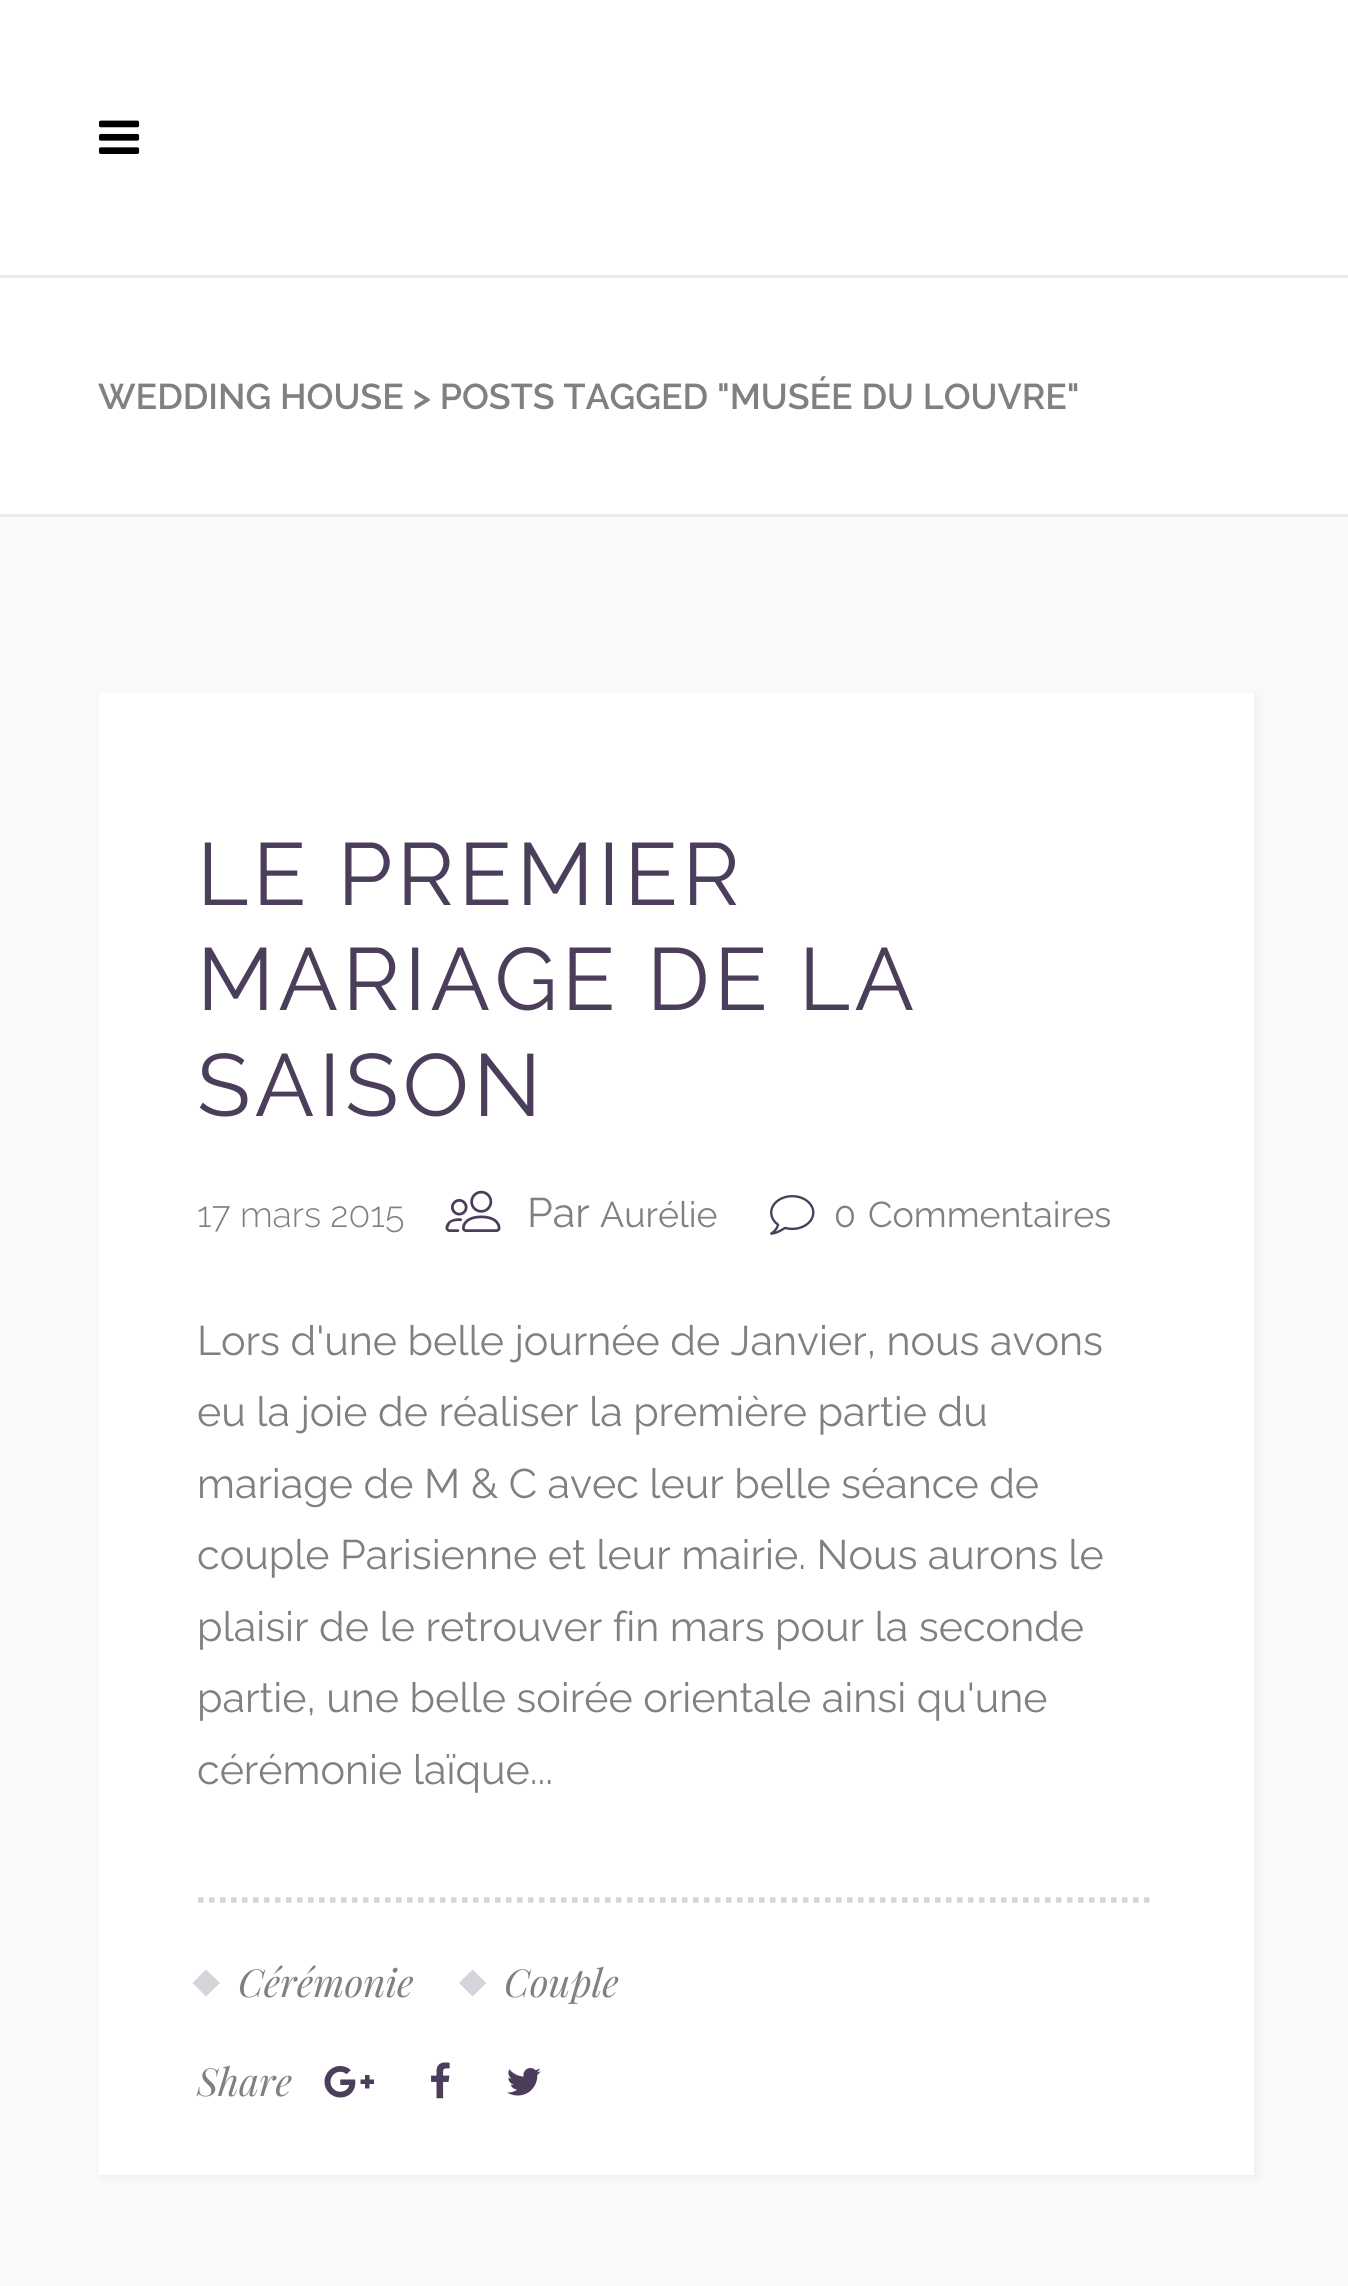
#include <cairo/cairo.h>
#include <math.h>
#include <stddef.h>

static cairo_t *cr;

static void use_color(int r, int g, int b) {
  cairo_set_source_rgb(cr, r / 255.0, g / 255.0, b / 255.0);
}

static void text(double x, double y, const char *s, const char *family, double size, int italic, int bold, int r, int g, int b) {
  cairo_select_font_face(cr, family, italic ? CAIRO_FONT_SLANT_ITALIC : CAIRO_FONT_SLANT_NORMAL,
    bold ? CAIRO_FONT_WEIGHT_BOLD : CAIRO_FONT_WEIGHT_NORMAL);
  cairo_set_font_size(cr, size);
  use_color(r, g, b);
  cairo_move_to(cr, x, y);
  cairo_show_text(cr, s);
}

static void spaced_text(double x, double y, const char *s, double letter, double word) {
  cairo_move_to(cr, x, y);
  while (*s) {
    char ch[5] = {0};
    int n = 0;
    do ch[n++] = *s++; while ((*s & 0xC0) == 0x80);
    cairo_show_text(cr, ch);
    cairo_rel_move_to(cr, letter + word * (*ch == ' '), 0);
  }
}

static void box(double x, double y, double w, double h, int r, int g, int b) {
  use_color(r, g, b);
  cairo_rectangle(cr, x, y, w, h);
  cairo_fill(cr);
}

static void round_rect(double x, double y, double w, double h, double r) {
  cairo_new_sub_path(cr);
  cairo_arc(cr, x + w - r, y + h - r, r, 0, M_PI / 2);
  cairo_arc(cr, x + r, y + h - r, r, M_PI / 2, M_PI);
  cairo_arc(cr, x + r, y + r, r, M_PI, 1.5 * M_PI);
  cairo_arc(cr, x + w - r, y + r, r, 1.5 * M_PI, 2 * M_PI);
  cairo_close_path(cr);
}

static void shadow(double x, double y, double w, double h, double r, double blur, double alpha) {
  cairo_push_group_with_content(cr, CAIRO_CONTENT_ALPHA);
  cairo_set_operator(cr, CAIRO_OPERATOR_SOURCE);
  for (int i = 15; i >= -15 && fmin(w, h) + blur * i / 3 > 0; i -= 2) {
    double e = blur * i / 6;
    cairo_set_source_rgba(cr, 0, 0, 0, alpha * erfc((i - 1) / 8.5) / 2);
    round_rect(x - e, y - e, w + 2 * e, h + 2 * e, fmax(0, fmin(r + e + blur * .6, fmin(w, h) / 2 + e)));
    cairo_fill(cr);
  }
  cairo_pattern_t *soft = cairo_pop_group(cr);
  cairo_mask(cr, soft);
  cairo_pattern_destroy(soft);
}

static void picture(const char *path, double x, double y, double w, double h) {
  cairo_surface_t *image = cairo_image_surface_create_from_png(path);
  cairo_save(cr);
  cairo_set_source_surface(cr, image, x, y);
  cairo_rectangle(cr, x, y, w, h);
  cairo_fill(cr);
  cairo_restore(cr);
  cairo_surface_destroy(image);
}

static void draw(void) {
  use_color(250, 250, 250);
  cairo_paint(cr);
  box(0, 0, 1348, 275, 255, 255, 255);
  picture("img_01.png", 99, 120, 41, 34);
  box(0, 278, 1348, 236, 255, 255, 255);
  box(0, 275, 1348, 3, 235, 235, 235);
  box(0, 514, 1348, 3, 235, 235, 235);
  use_color(238, 238, 238);
  shadow(102, 696, 1155, 1482, 0, 4, 1);
  box(99, 693, 1155, 1482, 255, 255, 255);
  picture("img_02.png", 445, 1190, 56, 42);
  picture("img_03.png", 770, 1195, 45, 40);
  cairo_new_path(cr);
  cairo_move_to(cr, 198, 1900);
  cairo_line_to(cr, 1155, 1900);
  use_color(215, 211, 219);
  cairo_set_line_width(cr, 5.5);
  cairo_set_dash(cr, (double[]){5.5, 5.5}, 2, 0);
  cairo_stroke(cr);
  cairo_new_path(cr);
  cairo_move_to(cr, 206, 1969.5);
  cairo_line_to(cr, 220, 1983);
  cairo_line_to(cr, 206, 1996.5);
  cairo_line_to(cr, 192.5, 1983);
  cairo_close_path(cr);
  cairo_fill(cr);
  cairo_new_path(cr);
  cairo_move_to(cr, 472.5, 1969.5);
  cairo_line_to(cr, 486.5, 1983);
  cairo_line_to(cr, 472.5, 1996.5);
  cairo_line_to(cr, 459, 1983);
  cairo_close_path(cr);
  cairo_fill(cr);
  picture("img_04.png", 324, 2066, 50, 32);
  picture("img_05.png", 431, 2062, 19, 37);
  picture("img_06.png", 507, 2068, 34, 28);
  text(98, 409, "WEDDING HOUSE > POSTS TAGGED \"MUSÉE DU LOUVRE\"", "Raleway SemiBold", 35.75, 0, 0, 128, 128, 128);
  cairo_select_font_face(cr, "Raleway", CAIRO_FONT_SLANT_NORMAL, CAIRO_FONT_WEIGHT_NORMAL);
  cairo_set_font_size(cr, 88);
  use_color(74, 62, 90);
  spaced_text(197, 905, "LE PREMIER", 4.4, 0);
  spaced_text(197, 1010, "MARIAGE DE LA", 4.4, 0);
  spaced_text(197, 1116, "SAISON", 4.4, 0);
  text(197, 1227, "17 mars 2015", "Raleway Light", 35.75, 0, 0, 128, 128, 128);
  text(527, 1227, "Par", "Raleway", 41.25, 0, 0, 128, 128, 128);
  text(600, 1227, "Aurélie", "Raleway", 35.75, 0, 0, 128, 128, 128);
  text(834, 1227, "0", "Raleway", 35.75, 0, 0, 128, 128, 128);
  text(868, 1227, "Commentaires", "Raleway", 35.75, 0, 0, 128, 128, 128);
  text(197, 1355, "Lors d'une belle journée de Janvier, nous avons", "Raleway", 41.25, 0, 0, 128, 128, 128);
  text(197, 1426, "eu la joie de réaliser la première partie du", "Raleway", 41.25, 0, 0, 128, 128, 128);
  text(197, 1498, "mariage de M & C avec leur belle séance de", "Raleway", 41.25, 0, 0, 128, 128, 128);
  text(197, 1569, "couple Parisienne et leur mairie. Nous aurons le", "Raleway", 41.25, 0, 0, 128, 128, 128);
  text(197, 1641, "plaisir de le retrouver fin mars pour la seconde", "Raleway", 41.25, 0, 0, 128, 128, 128);
  text(197, 1712, "partie, une belle soirée orientale ainsi qu'une", "Raleway", 41.25, 0, 0, 128, 128, 128);
  text(197, 1784, "cérémonie laïque...", "Raleway", 41.25, 0, 0, 128, 128, 128);
  text(238, 1997, "Cérémonie", "Playfair Display", 38.5, 1, 0, 128, 128, 128);
  text(504, 1997, "Couple", "Playfair Display", 38.5, 1, 0, 128, 128, 128);
  text(197, 2096, "Share", "Playfair Display", 38.5, 1, 0, 128, 128, 128);
}

int main(void) {
  cairo_surface_t *surface = cairo_image_surface_create(CAIRO_FORMAT_RGB24, 1348, 2286);
  cr = cairo_create(surface);
  cairo_font_options_t *options = cairo_font_options_create();
  cairo_font_options_set_hint_metrics(options, CAIRO_HINT_METRICS_OFF);
  cairo_font_options_set_hint_style(options, CAIRO_HINT_STYLE_NONE);
  cairo_set_font_options(cr, options);
  cairo_set_miter_limit(cr, 4);
  draw();
  cairo_surface_write_to_png(surface, "out.png");
  cairo_font_options_destroy(options);
  cairo_destroy(cr);
  cairo_surface_destroy(surface);
  return 0;
}
